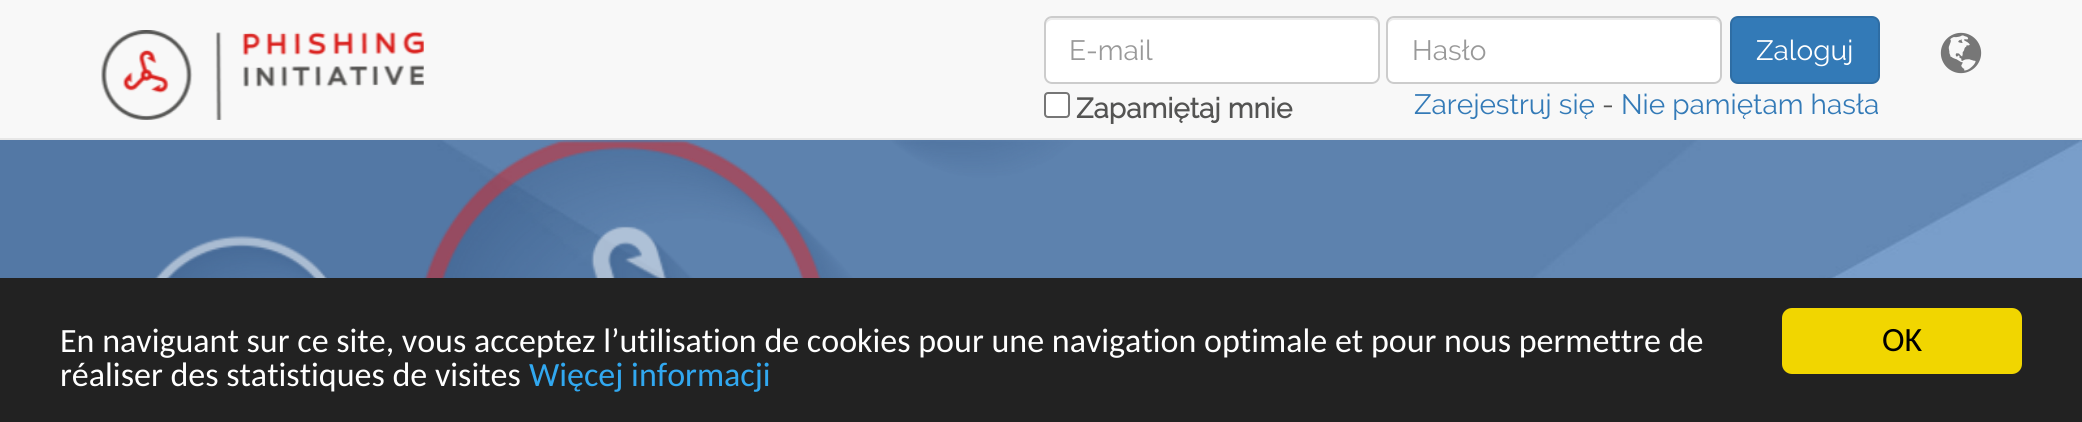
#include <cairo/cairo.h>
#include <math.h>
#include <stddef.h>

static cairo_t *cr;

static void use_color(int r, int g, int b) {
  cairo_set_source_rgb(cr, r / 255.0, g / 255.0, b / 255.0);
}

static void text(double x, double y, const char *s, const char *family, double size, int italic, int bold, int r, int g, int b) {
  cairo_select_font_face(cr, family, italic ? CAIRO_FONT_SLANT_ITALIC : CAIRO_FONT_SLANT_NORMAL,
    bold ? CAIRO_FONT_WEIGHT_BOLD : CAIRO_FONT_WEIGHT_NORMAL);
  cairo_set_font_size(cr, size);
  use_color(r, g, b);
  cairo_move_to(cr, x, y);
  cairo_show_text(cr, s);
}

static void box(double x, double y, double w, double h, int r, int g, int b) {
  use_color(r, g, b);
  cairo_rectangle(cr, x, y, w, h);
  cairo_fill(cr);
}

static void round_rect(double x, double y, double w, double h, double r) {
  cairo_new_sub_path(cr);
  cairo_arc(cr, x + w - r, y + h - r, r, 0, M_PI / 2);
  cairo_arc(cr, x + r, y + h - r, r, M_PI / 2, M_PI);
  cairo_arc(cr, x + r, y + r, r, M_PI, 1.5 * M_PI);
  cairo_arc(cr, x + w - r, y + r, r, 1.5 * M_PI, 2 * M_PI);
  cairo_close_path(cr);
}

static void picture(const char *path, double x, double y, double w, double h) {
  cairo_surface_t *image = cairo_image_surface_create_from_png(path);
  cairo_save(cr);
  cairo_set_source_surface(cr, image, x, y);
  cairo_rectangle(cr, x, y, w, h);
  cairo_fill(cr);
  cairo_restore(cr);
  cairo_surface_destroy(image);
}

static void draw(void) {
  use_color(255, 255, 255);
  cairo_paint(cr);
  box(0, 0, 2082, 138, 248, 248, 248);
  box(0, 138, 2082, 2, 231, 231, 231);
  picture("img_01.png", 101, 30, 323, 90);
  use_color(255, 255, 255);
  round_rect(1044, 16, 336, 68, 8);
  cairo_fill(cr);
  use_color(236, 236, 236);
  cairo_new_path(cr);
  cairo_move_to(cr, 1052, 20);
  cairo_line_to(cr, 1372, 20);
  cairo_curve_to(cr, 1375, 20, 1378, 23, 1378, 26);
  cairo_line_to(cr, 1378, 24);
  cairo_curve_to(cr, 1378, 21, 1375, 18, 1372, 18);
  cairo_line_to(cr, 1052, 18);
  cairo_curve_to(cr, 1049, 18, 1046, 21, 1046, 24);
  cairo_line_to(cr, 1046, 26);
  cairo_curve_to(cr, 1046, 23, 1049, 20, 1052, 20);
  cairo_close_path(cr);
  cairo_fill(cr);
  round_rect(1045, 17, 334, 66, 7);
  use_color(204, 204, 204);
  cairo_stroke(cr);
  use_color(255, 255, 255);
  round_rect(1386, 16, 336, 68, 8);
  cairo_fill(cr);
  use_color(236, 236, 236);
  cairo_new_path(cr);
  cairo_move_to(cr, 1394, 20);
  cairo_line_to(cr, 1714, 20);
  cairo_curve_to(cr, 1717, 20, 1720, 23, 1720, 26);
  cairo_line_to(cr, 1720, 24);
  cairo_curve_to(cr, 1720, 21, 1717, 18, 1714, 18);
  cairo_line_to(cr, 1394, 18);
  cairo_curve_to(cr, 1391, 18, 1388, 21, 1388, 24);
  cairo_line_to(cr, 1388, 26);
  cairo_curve_to(cr, 1388, 23, 1391, 20, 1394, 20);
  cairo_close_path(cr);
  cairo_fill(cr);
  round_rect(1387, 17, 334, 66, 7);
  use_color(204, 204, 204);
  cairo_stroke(cr);
  use_color(51, 122, 183);
  round_rect(1731, 17, 148, 66, 7);
  cairo_fill_preserve(cr);
  use_color(46, 109, 164);
  cairo_stroke(cr);
  use_color(255, 255, 255);
  round_rect(1045, 93, 24, 24, 3);
  cairo_fill_preserve(cr);
  use_color(118, 118, 118);
  cairo_stroke(cr);
  picture("img_02.png", 1940, 32, 42, 42);
  picture("img_03.png", 0, 140, 2082, 138);
  box(0, 278, 2082, 144, 34, 34, 34);
  use_color(241, 214, 0);
  round_rect(1782, 308, 240, 66, 10);
  cairo_fill(cr);
  text(1069, 60, "E-mail", "Raleway", 28, 0, 0, 153, 153, 153);
  text(1412, 60, "Hasło", "Raleway", 28, 0, 0, 153, 153, 153);
  text(1756, 60, "Zaloguj", "Raleway", 28, 0, 0, 255, 255, 255);
  text(1076, 118, "Zapamiętaj mnie", "Raleway", 28, 0, 1, 84, 84, 83);
  text(1414, 114, "Zarejestruj się", "Raleway", 28, 0, 0, 51, 122, 183);
  text(1602, 114, "-", "Raleway", 28, 0, 0, 84, 84, 83);
  text(1621, 114, "Nie pamiętam hasła", "Raleway", 28, 0, 0, 51, 122, 183);
  text(60, 352, "En naviguant sur ce site, vous acceptez l’utilisation de cookies pour une navigation optimale et pour nous permettre de", "Carlito", 34, 0, 0, 255, 255, 255);
  text(60, 386, "réaliser des statistiques de visites", "Carlito", 34, 0, 0, 255, 255, 255);
  text(529, 386, "Więcej informacji", "Carlito", 34, 0, 0, 49, 168, 240);
  text(1882, 351, "OK", "Carlito", 34, 0, 0, 0, 0, 0);
}

int main(void) {
  cairo_surface_t *surface = cairo_image_surface_create(CAIRO_FORMAT_RGB24, 2082, 422);
  cr = cairo_create(surface);
  cairo_font_options_t *options = cairo_font_options_create();
  cairo_font_options_set_hint_metrics(options, CAIRO_HINT_METRICS_OFF);
  cairo_font_options_set_hint_style(options, CAIRO_HINT_STYLE_NONE);
  cairo_set_font_options(cr, options);
  cairo_set_miter_limit(cr, 4);
  draw();
  cairo_surface_write_to_png(surface, "out.png");
  cairo_font_options_destroy(options);
  cairo_destroy(cr);
  cairo_surface_destroy(surface);
  return 0;
}
